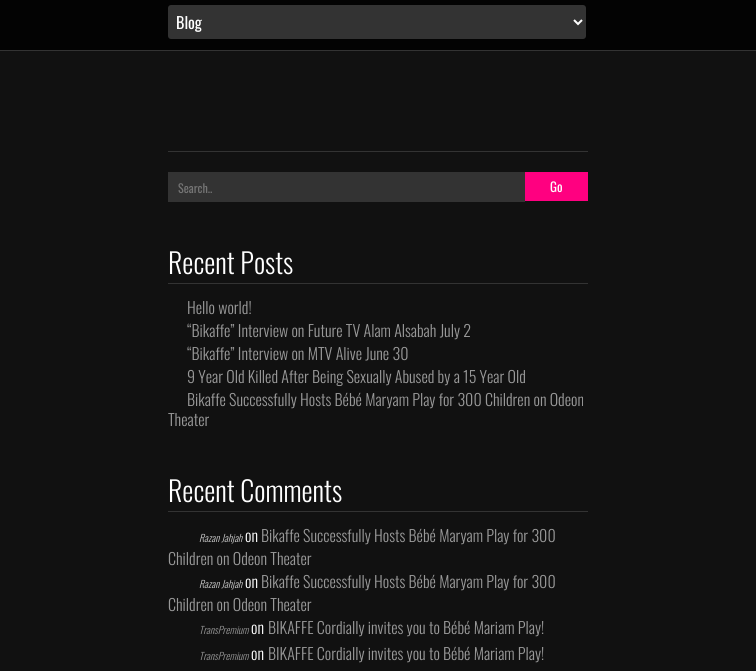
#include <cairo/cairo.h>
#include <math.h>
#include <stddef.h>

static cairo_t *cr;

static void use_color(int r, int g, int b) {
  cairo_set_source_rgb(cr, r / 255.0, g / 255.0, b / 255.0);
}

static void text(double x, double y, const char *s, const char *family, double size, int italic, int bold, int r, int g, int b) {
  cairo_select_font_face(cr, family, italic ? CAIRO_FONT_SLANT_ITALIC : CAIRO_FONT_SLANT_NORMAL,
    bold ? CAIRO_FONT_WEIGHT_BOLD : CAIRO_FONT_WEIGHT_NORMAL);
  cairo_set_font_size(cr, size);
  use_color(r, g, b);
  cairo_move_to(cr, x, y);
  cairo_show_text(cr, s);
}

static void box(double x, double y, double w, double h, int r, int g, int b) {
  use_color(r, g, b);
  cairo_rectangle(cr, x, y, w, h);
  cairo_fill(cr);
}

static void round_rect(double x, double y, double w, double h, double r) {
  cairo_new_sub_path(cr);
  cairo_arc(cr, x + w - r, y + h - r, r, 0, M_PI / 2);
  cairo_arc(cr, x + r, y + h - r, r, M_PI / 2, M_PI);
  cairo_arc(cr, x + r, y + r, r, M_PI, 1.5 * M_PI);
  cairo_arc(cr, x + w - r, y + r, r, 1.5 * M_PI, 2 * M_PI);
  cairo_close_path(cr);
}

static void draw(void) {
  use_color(17, 17, 17);
  cairo_paint(cr);
  box(0, 0, 756, 50, 3, 3, 3);
  box(0, 50, 756, 1, 51, 51, 51);
  round_rect(168, 5, 418, 34, 3);
  cairo_fill(cr);
  cairo_new_path(cr);
  cairo_move_to(cr, 574, 20);
  cairo_line_to(cr, 578, 24);
  cairo_line_to(cr, 582, 20);
  use_color(255, 255, 255);
  cairo_stroke(cr);
  box(168, 151, 420, 1, 51, 51, 51);
  box(168, 172, 357, 30, 51, 51, 51);
  box(525, 172, 63, 29, 255, 0, 128);
  box(168, 283, 420, 1, 51, 51, 51);
  box(168, 511, 420, 1, 51, 51, 51);
  text(176, 29, "Blog", "Oswald", 16, 0, 0, 255, 255, 255);
  text(178, 193, "Search..", "Oswald", 12, 0, 0, 117, 117, 117);
  text(550, 192, "Go", "Oswald", 13, 0, 0, 255, 255, 255);
  text(168, 274, "Recent Posts", "Oswald Light", 28, 0, 0, 255, 255, 255);
  text(187, 314, "Hello world!", "Oswald Light", 16, 0, 0, 153, 153, 153);
  text(187, 337, "“Bikaffe” Interview on Future TV Alam Alsabah July 2", "Oswald Light", 16, 0, 0, 153, 153, 153);
  text(187, 360, "“Bikaffe” Interview on MTV Alive June 30", "Oswald Light", 16, 0, 0, 153, 153, 153);
  text(187, 383, "9 Year Old Killed After Being Sexually Abused by a 15 Year Old", "Oswald Light", 16, 0, 0, 153, 153, 153);
  text(187, 406, "Bikaffe Successfully Hosts Bébé Maryam Play for 300 Children on Odeon", "Oswald Light", 16, 0, 0, 153, 153, 153);
  text(168, 426, "Theater", "Oswald Light", 16, 0, 0, 153, 153, 153);
  text(168, 502, "Recent Comments", "Oswald Light", 28, 0, 0, 255, 255, 255);
  text(199, 542, "Razan Jahjah", "Oswald Light", 10, 1, 0, 204, 204, 204);
  text(245, 542, "on", "Oswald Light", 16, 0, 0, 255, 255, 255);
  text(261, 542, "Bikaffe Successfully Hosts Bébé Maryam Play for 300", "Oswald Light", 16, 0, 0, 153, 153, 153);
  text(168, 565, "Children on Odeon Theater", "Oswald Light", 16, 0, 0, 153, 153, 153);
  text(199, 588, "Razan Jahjah", "Oswald Light", 10, 1, 0, 204, 204, 204);
  text(245, 588, "on", "Oswald Light", 16, 0, 0, 255, 255, 255);
  text(261, 588, "Bikaffe Successfully Hosts Bébé Maryam Play for 300", "Oswald Light", 16, 0, 0, 153, 153, 153);
  text(168, 611, "Children on Odeon Theater", "Oswald Light", 16, 0, 0, 153, 153, 153);
  text(199, 634, "TransPremium", "Oswald Light", 10, 1, 0, 153, 153, 153);
  text(251, 634, "on", "Oswald Light", 16, 0, 0, 255, 255, 255);
  text(268, 634, "BIKAFFE Cordially invites you to Bébé Mariam Play!", "Oswald Light", 16, 0, 0, 153, 153, 153);
  text(199, 660, "TransPremium", "Oswald Light", 10, 1, 0, 153, 153, 153);
  text(251, 660, "on", "Oswald Light", 16, 0, 0, 255, 255, 255);
  text(268, 660, "BIKAFFE Cordially invites you to Bébé Mariam Play!", "Oswald Light", 16, 0, 0, 153, 153, 153);
}

int main(void) {
  cairo_surface_t *surface = cairo_image_surface_create(CAIRO_FORMAT_RGB24, 756, 671);
  cr = cairo_create(surface);
  cairo_font_options_t *options = cairo_font_options_create();
  cairo_font_options_set_hint_metrics(options, CAIRO_HINT_METRICS_OFF);
  cairo_font_options_set_hint_style(options, CAIRO_HINT_STYLE_NONE);
  cairo_set_font_options(cr, options);
  cairo_set_miter_limit(cr, 4);
  draw();
  cairo_surface_write_to_png(surface, "out.png");
  cairo_font_options_destroy(options);
  cairo_destroy(cr);
  cairo_surface_destroy(surface);
  return 0;
}
